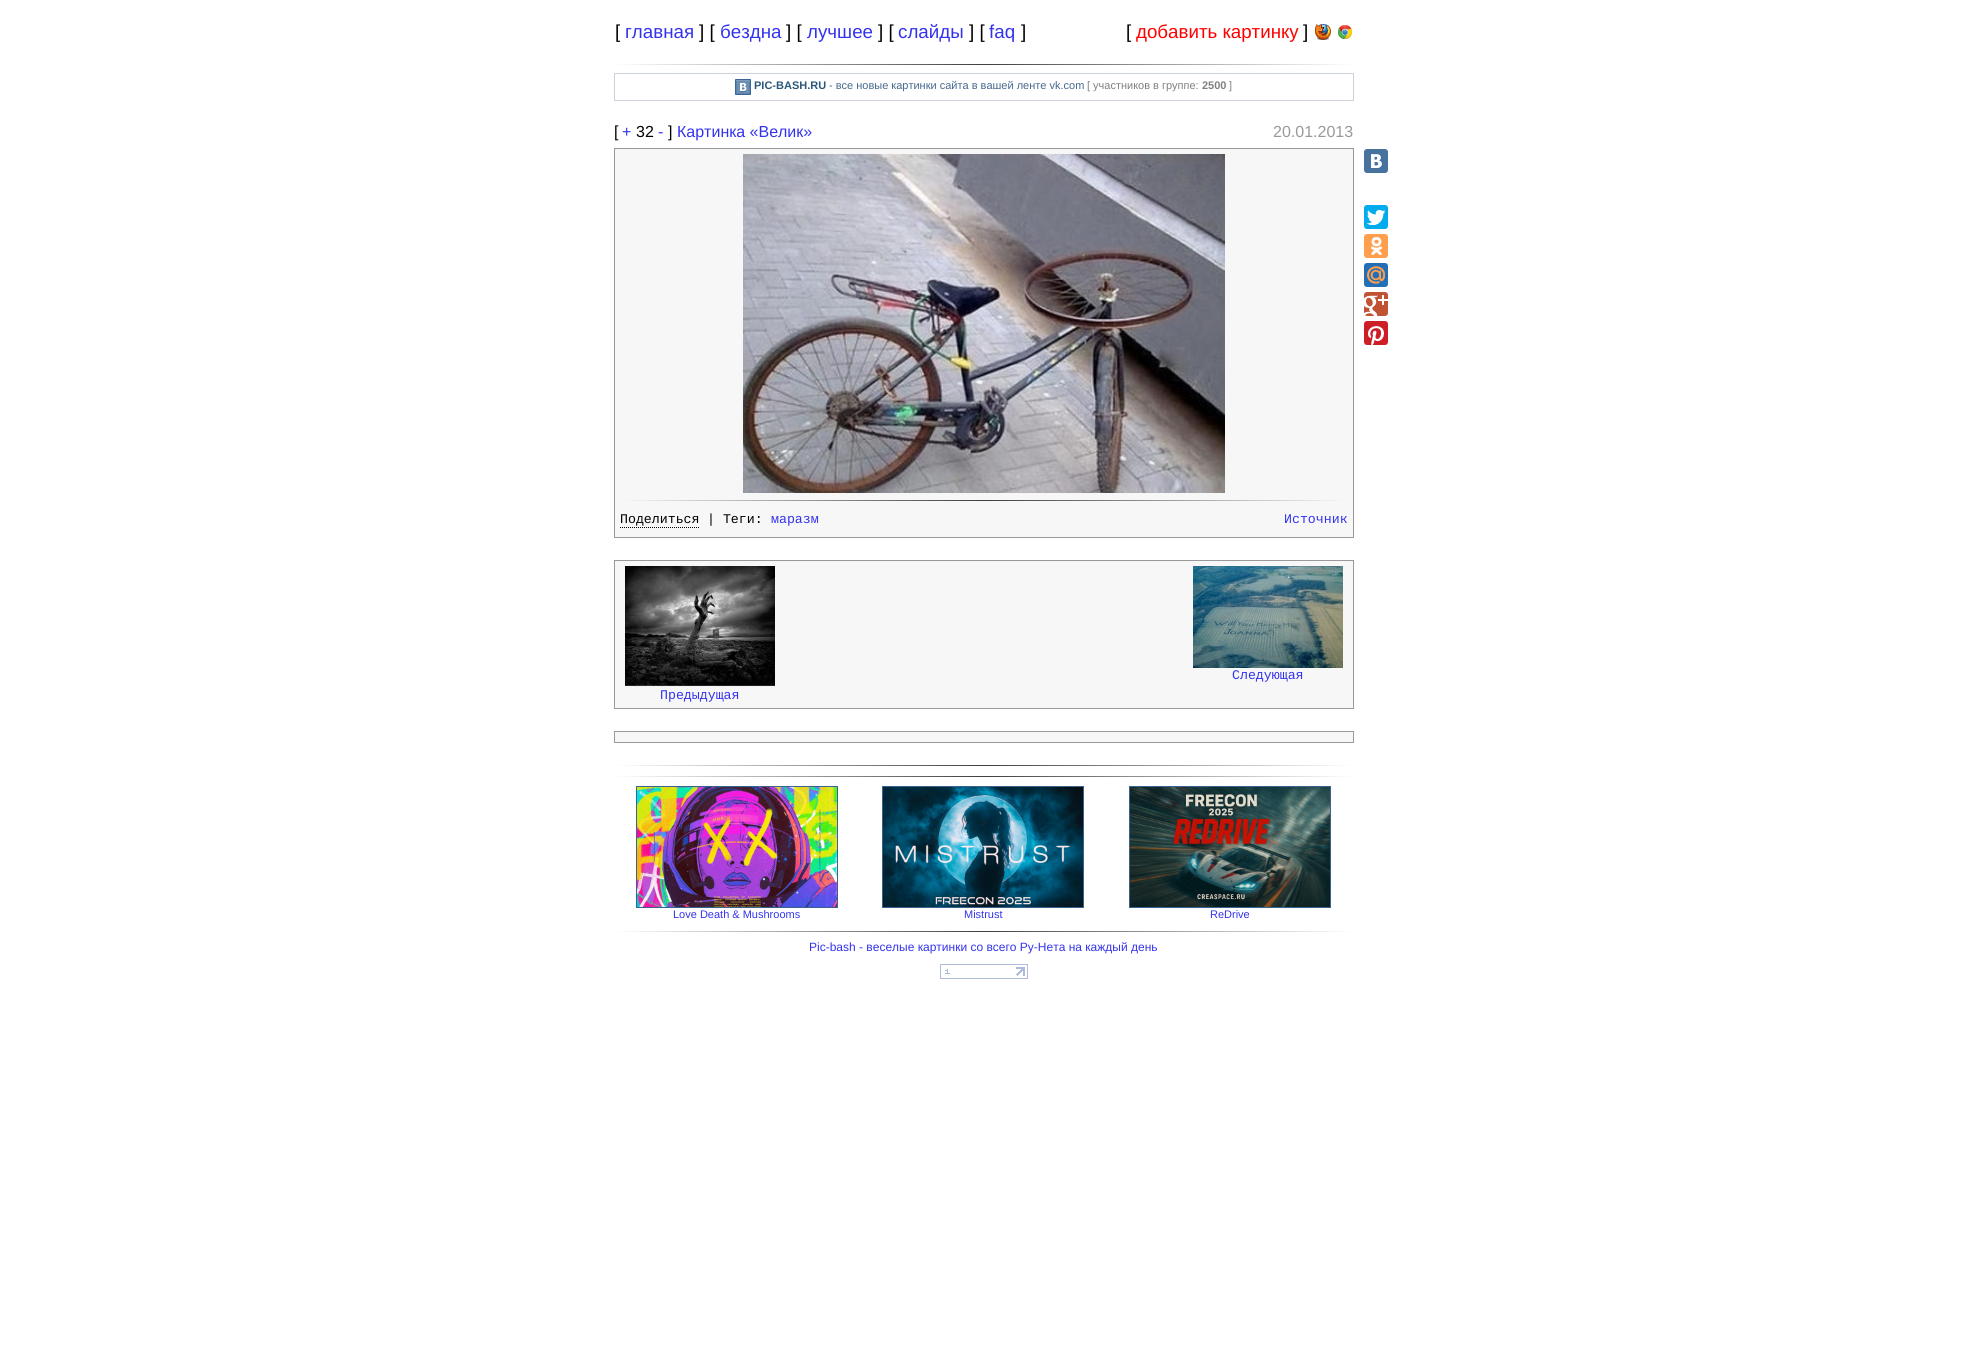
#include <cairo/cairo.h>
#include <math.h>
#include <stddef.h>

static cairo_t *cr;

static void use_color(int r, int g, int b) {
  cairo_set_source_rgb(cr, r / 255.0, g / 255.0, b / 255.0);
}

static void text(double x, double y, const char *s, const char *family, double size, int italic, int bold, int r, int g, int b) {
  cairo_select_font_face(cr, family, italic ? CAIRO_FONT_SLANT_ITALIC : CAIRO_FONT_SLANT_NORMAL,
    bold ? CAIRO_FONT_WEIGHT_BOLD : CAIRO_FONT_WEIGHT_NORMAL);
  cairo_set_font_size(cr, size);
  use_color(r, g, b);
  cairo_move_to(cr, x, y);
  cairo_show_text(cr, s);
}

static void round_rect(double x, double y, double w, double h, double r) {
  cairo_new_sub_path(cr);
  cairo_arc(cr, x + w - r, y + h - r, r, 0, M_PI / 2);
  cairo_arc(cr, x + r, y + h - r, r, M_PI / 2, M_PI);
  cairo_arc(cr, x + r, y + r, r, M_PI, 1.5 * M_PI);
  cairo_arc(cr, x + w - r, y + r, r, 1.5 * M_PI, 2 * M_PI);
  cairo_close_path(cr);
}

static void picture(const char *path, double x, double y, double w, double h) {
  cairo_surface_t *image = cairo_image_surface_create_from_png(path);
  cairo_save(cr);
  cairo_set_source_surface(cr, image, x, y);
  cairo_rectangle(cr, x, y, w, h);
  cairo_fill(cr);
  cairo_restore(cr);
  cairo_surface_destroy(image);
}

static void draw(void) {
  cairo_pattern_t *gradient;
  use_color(255, 255, 255);
  cairo_paint(cr);
  picture("img_01.png", 1315, 24, 16, 16);
  picture("img_02.png", 1338, 25, 14, 14);
  gradient = cairo_pattern_create_linear(614, 65, 1354, 64);
  cairo_pattern_add_color_stop_rgba(gradient, 0, 1, 1, 1, 1);
  cairo_pattern_add_color_stop_rgba(gradient, 0.5, 0.251, 0.251, 0.251, 1);
  cairo_pattern_add_color_stop_rgba(gradient, 1, 1, 1, 1, 1);
  cairo_set_source(cr, gradient);
  cairo_pattern_destroy(gradient);
  cairo_rectangle(cr, 614, 64, 740, 1);
  cairo_fill(cr);
  cairo_rectangle(cr, 614.5, 73.5, 739, 27);
  use_color(204, 211, 218);
  cairo_set_line_width(cr, 1);
  cairo_stroke(cr);
  picture("img_03.png", 735, 79, 16, 16);
  use_color(72, 114, 158);
  round_rect(1364, 149, 24, 24, 3);
  cairo_fill(cr);
  picture("img_04.png", 1371, 154, 11, 14);
  use_color(0, 172, 237);
  round_rect(1364, 205, 24, 24, 3);
  cairo_fill(cr);
  picture("img_05.png", 1367, 210, 18, 15);
  use_color(255, 159, 77);
  round_rect(1364, 234, 24, 24, 3);
  cairo_fill(cr);
  picture("img_06.png", 1371, 237, 11, 18);
  use_color(34, 110, 183);
  round_rect(1364, 263, 24, 24, 3);
  cairo_fill(cr);
  picture("img_07.png", 1367, 266, 18, 18);
  use_color(194, 82, 52);
  round_rect(1364, 292, 24, 24, 3);
  cairo_fill(cr);
  picture("img_08.png", 1364, 295, 24, 21);
  use_color(205, 30, 39);
  round_rect(1364, 321, 24, 24, 3);
  cairo_fill(cr);
  picture("img_09.png", 1367, 326, 17, 19);
  use_color(247, 247, 247);
  cairo_rectangle(cr, 614.5, 148.5, 739, 389);
  cairo_fill_preserve(cr);
  use_color(153, 153, 153);
  cairo_stroke(cr);
  picture("img_10.png", 743, 154, 482, 339);
  gradient = cairo_pattern_create_linear(620, 501, 1348, 501);
  cairo_pattern_add_color_stop_rgba(gradient, 0, 0.969, 0.969, 0.969, 1);
  cairo_pattern_add_color_stop_rgba(gradient, 0.5, 0.243, 0.243, 0.243, 1);
  cairo_pattern_add_color_stop_rgba(gradient, 1, 0.969, 0.969, 0.969, 1);
  cairo_set_source(cr, gradient);
  cairo_pattern_destroy(gradient);
  cairo_rectangle(cr, 620, 500, 728, 1);
  cairo_fill(cr);
  cairo_new_path(cr);
  cairo_move_to(cr, 620, 527.5);
  cairo_line_to(cr, 699, 527.5);
  use_color(0, 0, 0);
  cairo_set_dash(cr, (double[]){1, 1}, 2, 0);
  cairo_stroke(cr);
  use_color(247, 247, 247);
  cairo_rectangle(cr, 614.5, 560.5, 739, 148);
  cairo_fill_preserve(cr);
  use_color(153, 153, 153);
  cairo_set_dash(cr, NULL, 0, 0);
  cairo_stroke(cr);
  picture("img_11.png", 1193, 566, 150, 102);
  picture("img_12.png", 625, 566, 150, 121);
  use_color(247, 247, 247);
  cairo_rectangle(cr, 614.5, 731.5, 739, 11);
  cairo_fill_preserve(cr);
  use_color(153, 153, 153);
  cairo_stroke(cr);
  gradient = cairo_pattern_create_linear(614, 766, 1354, 766);
  cairo_pattern_add_color_stop_rgba(gradient, 0, 1, 1, 1, 1);
  cairo_pattern_add_color_stop_rgba(gradient, 0.5, 0.251, 0.251, 0.251, 1);
  cairo_pattern_add_color_stop_rgba(gradient, 1, 1, 1, 1, 1);
  cairo_set_source(cr, gradient);
  cairo_pattern_destroy(gradient);
  cairo_rectangle(cr, 614, 765, 740, 1);
  cairo_fill(cr);
  gradient = cairo_pattern_create_linear(614, 777, 1354, 777);
  cairo_pattern_add_color_stop_rgba(gradient, 0, 1, 1, 1, 1);
  cairo_pattern_add_color_stop_rgba(gradient, 0.5, 0.251, 0.251, 0.251, 1);
  cairo_pattern_add_color_stop_rgba(gradient, 1, 1, 1, 1, 1);
  cairo_set_source(cr, gradient);
  cairo_pattern_destroy(gradient);
  cairo_rectangle(cr, 614, 776, 740, 1);
  cairo_fill(cr);
  cairo_rectangle(cr, 636.5, 786.5, 201, 121);
  use_color(57, 99, 142);
  cairo_stroke(cr);
  picture("img_13.png", 637, 787, 200, 120);
  cairo_rectangle(cr, 882.5, 786.5, 201, 121);
  cairo_stroke(cr);
  picture("img_14.png", 883, 787, 200, 120);
  cairo_rectangle(cr, 1129.5, 786.5, 201, 121);
  cairo_stroke(cr);
  picture("img_15.png", 1130, 787, 200, 120);
  gradient = cairo_pattern_create_linear(614, 932, 1354, 932);
  cairo_pattern_add_color_stop_rgba(gradient, 0, 1, 1, 1, 1);
  cairo_pattern_add_color_stop_rgba(gradient, 0.5, 0.251, 0.251, 0.251, 1);
  cairo_pattern_add_color_stop_rgba(gradient, 1, 1, 1, 1, 1);
  cairo_set_source(cr, gradient);
  cairo_pattern_destroy(gradient);
  cairo_rectangle(cr, 614, 931, 740, 1);
  cairo_fill(cr);
  picture("img_16.png", 940, 964, 88, 15);
  text(615, 38, "[", "Liberation Sans", 18.75, 0, 0, 0, 0, 0);
  text(625, 38, "главная", "Liberation Sans", 18.75, 0, 0, 51, 51, 238);
  text(699, 38, "] [", "Liberation Sans", 18.75, 0, 0, 0, 0, 0);
  text(720, 38, "бездна", "Liberation Sans", 18.75, 0, 0, 51, 51, 238);
  text(786, 38, "] [", "Liberation Sans", 18.75, 0, 0, 0, 0, 0);
  text(807, 38, "лучшее", "Liberation Sans", 18.75, 0, 0, 51, 51, 238);
  text(878, 38, "] [", "Liberation Sans", 18.75, 0, 0, 0, 0, 0);
  text(898, 38, "слайды", "Liberation Sans", 18.75, 0, 0, 51, 51, 238);
  text(969, 38, "] [", "Liberation Sans", 18.75, 0, 0, 0, 0, 0);
  text(989, 38, "faq", "Liberation Sans", 18.75, 0, 0, 51, 51, 238);
  text(1021, 38, "]", "Liberation Sans", 18.75, 0, 0, 0, 0, 0);
  text(1126, 38, "[", "Liberation Sans", 18.75, 0, 0, 0, 0, 0);
  text(1136, 38, "добавить картинку", "Liberation Sans", 18.75, 0, 0, 255, 0, 0);
  text(1303, 38, "]", "Liberation Sans", 18.75, 0, 0, 0, 0, 0);
  text(754, 89, "PIC-BASH.RU", "Liberation Sans", 11, 0, 1, 43, 88, 122);
  text(829, 89, "- все новые картинки сайта в вашей ленте vk.com", "Liberation Sans", 11, 0, 0, 69, 104, 142);
  text(1087, 89, "[ участников в группе:", "Liberation Sans", 11, 0, 0, 128, 128, 128);
  text(1202, 89, "2500", "Liberation Sans", 11, 0, 1, 128, 128, 128);
  text(1229, 89, "]", "Liberation Sans", 11, 0, 0, 128, 128, 128);
  text(614, 137, "[", "Liberation Sans", 16, 0, 0, 0, 0, 0);
  text(622, 137, "+", "Liberation Sans", 16, 0, 0, 51, 51, 238);
  text(636, 137, "32", "Liberation Sans", 16, 0, 0, 0, 0, 0);
  text(658, 137, "-", "Liberation Sans", 16, 0, 0, 51, 51, 238);
  text(668, 137, "]", "Liberation Sans", 16, 0, 0, 0, 0, 0);
  text(677, 137, "Картинка «Велик»", "Liberation Sans", 16, 0, 0, 51, 51, 238);
  text(1273, 137, "20.01.2013", "Liberation Sans", 16, 0, 0, 153, 153, 153);
  text(620, 523, "Поделиться", "Liberation Mono", 13.25, 0, 0, 0, 0, 0);
  text(707, 523, "| Теги:", "Liberation Mono", 13.25, 0, 0, 0, 0, 0);
  text(771, 523, "маразм", "Liberation Mono", 13.25, 0, 0, 51, 51, 238);
  text(1284, 523, "Источник", "Liberation Mono", 13.25, 0, 0, 51, 51, 238);
  text(1232, 679, "Следующая", "Liberation Mono", 13.25, 0, 0, 51, 51, 238);
  text(660, 699, "Предыдущая", "Liberation Mono", 13.25, 0, 0, 51, 51, 238);
  text(673, 918, "Love Death & Mushrooms", "Liberation Sans", 11, 0, 0, 51, 51, 238);
  text(964, 918, "Mistrust", "Liberation Sans", 11, 0, 0, 51, 51, 238);
  text(1210, 918, "ReDrive", "Liberation Sans", 11, 0, 0, 51, 51, 238);
  text(809, 951, "Pic-bash - веселые картинки со всего Ру-Нета на каждый день", "Liberation Sans", 12, 0, 0, 51, 51, 238);
}

int main(void) {
  cairo_surface_t *surface = cairo_image_surface_create(CAIRO_FORMAT_RGB24, 1967, 1351);
  cr = cairo_create(surface);
  cairo_font_options_t *options = cairo_font_options_create();
  cairo_font_options_set_hint_metrics(options, CAIRO_HINT_METRICS_OFF);
  cairo_font_options_set_hint_style(options, CAIRO_HINT_STYLE_NONE);
  cairo_set_font_options(cr, options);
  cairo_set_miter_limit(cr, 4);
  draw();
  cairo_surface_write_to_png(surface, "out.png");
  cairo_font_options_destroy(options);
  cairo_destroy(cr);
  cairo_surface_destroy(surface);
  return 0;
}
